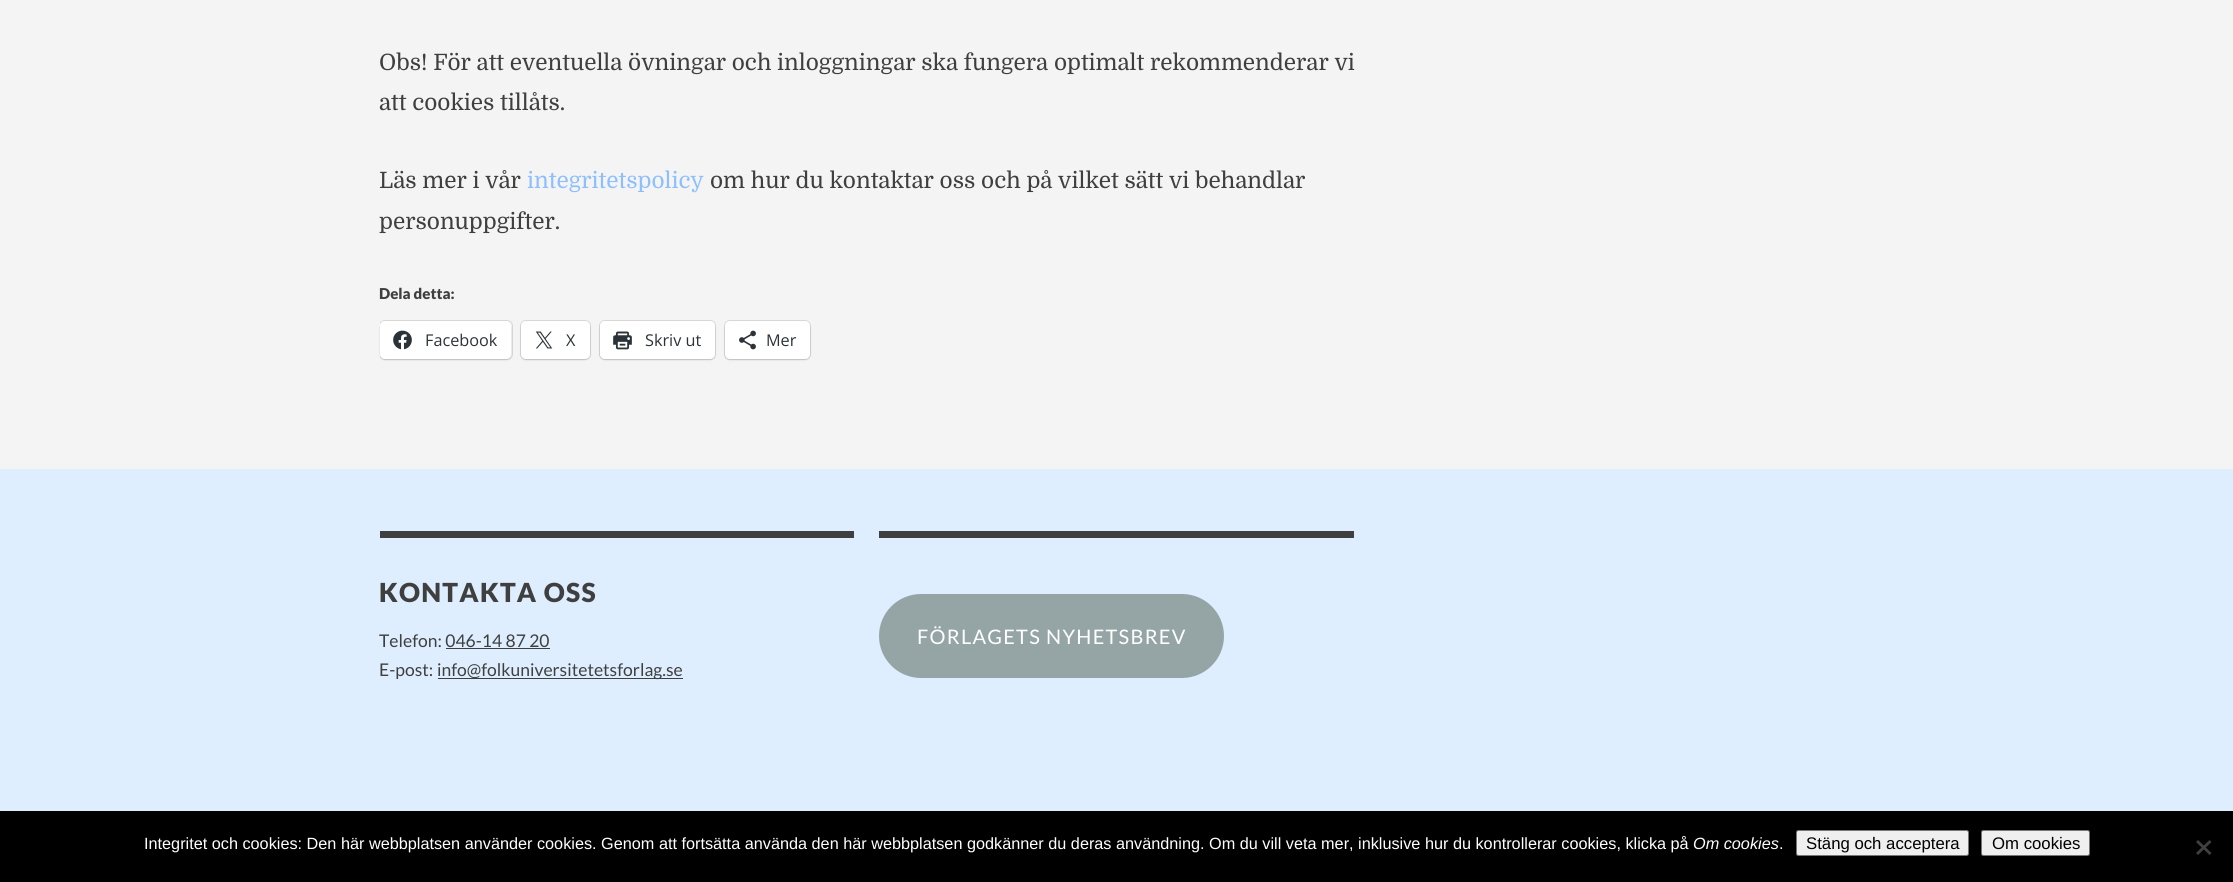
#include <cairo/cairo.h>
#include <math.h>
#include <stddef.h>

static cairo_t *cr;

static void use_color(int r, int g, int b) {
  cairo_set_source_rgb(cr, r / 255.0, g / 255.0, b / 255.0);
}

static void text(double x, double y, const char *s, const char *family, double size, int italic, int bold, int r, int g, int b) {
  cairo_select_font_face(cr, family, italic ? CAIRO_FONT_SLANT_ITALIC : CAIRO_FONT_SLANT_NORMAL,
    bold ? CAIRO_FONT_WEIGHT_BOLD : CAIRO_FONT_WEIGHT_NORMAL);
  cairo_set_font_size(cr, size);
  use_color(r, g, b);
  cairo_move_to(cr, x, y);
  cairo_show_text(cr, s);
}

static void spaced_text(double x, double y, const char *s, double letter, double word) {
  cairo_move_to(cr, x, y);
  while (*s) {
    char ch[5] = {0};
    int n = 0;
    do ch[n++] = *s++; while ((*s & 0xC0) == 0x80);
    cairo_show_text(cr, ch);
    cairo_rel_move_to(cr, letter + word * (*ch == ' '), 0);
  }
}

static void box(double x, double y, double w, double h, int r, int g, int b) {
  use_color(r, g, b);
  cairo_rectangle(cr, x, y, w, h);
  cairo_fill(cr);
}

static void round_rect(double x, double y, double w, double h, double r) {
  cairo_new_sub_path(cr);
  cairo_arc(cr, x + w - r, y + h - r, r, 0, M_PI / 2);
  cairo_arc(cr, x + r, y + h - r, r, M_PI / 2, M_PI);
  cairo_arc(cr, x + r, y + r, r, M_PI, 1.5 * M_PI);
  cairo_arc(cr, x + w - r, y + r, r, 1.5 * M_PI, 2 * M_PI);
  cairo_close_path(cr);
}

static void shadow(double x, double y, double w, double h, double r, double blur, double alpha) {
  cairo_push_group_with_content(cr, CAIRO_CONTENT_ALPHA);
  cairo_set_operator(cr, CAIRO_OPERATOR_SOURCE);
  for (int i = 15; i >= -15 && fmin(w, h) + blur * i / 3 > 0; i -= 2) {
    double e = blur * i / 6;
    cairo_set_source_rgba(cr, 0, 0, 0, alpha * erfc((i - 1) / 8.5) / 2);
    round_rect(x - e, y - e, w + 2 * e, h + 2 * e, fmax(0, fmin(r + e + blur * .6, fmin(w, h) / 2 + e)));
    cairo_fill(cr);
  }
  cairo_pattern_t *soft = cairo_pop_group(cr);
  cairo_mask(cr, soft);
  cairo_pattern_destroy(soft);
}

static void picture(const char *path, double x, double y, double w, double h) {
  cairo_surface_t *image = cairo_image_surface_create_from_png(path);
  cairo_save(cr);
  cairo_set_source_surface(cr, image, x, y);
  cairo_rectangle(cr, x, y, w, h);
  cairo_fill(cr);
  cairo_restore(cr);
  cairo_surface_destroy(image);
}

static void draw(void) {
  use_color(244, 244, 244);
  cairo_paint(cr);
  cairo_save(cr);
  cairo_rectangle(cr, 380, 319, 1000, 55);
  cairo_clip(cr);
  round_rect(379.5, 320.5, 133, 39, 5.5);
  use_color(215, 215, 215);
  cairo_set_line_width(cr, 1);
  cairo_stroke(cr);
  cairo_restore(cr);
  use_color(0, 0, 0);
  shadow(380, 323, 131, 37, 5, 1, 0.12);
  use_color(255, 255, 255);
  round_rect(380, 321, 131, 38, 5);
  cairo_fill(cr);
  picture("img_01.png", 393, 330, 19, 20);
  round_rect(520.5, 320.5, 70, 39, 5.5);
  use_color(215, 215, 215);
  cairo_set_line_width(cr, 1);
  cairo_stroke(cr);
  use_color(0, 0, 0);
  shadow(521, 323, 69, 37, 5, 1, 0.12);
  use_color(255, 255, 255);
  round_rect(521, 321, 69, 38, 5);
  cairo_fill(cr);
  picture("img_02.png", 535, 331, 18, 18);
  round_rect(599.5, 320.5, 116, 39, 5.5);
  use_color(215, 215, 215);
  cairo_stroke(cr);
  use_color(0, 0, 0);
  shadow(600, 323, 115, 37, 5, 1, 0.12);
  use_color(255, 255, 255);
  round_rect(600, 321, 115, 38, 5);
  cairo_fill(cr);
  picture("img_03.png", 613, 331, 19, 19);
  round_rect(724.5, 320.5, 86, 39, 5.5);
  use_color(215, 215, 215);
  cairo_stroke(cr);
  use_color(0, 0, 0);
  shadow(725, 323, 85, 37, 5, 1, 0.12);
  use_color(255, 255, 255);
  round_rect(725, 321, 85, 38, 5);
  cairo_fill(cr);
  picture("img_04.png", 739, 330, 17, 20);
  box(0, 469, 2233, 342, 222, 238, 254);
  box(380, 531, 474, 7, 63, 63, 63);
  box(446, 648, 104, 1, 63, 63, 63);
  box(438, 678, 245, 1, 63, 63, 63);
  box(879, 531, 475, 7, 63, 63, 63);
  use_color(149, 165, 166);
  round_rect(879, 594, 345, 84, 42);
  cairo_fill(cr);
  box(0, 811, 2233, 71, 0, 0, 0);
  use_color(239, 239, 239);
  round_rect(1796.5, 830.5, 172, 25, 2);
  cairo_fill_preserve(cr);
  use_color(118, 118, 118);
  cairo_stroke(cr);
  use_color(239, 239, 239);
  round_rect(1981.5, 830.5, 108, 25, 2);
  cairo_fill_preserve(cr);
  use_color(118, 118, 118);
  cairo_stroke(cr);
  use_color(64, 64, 64);
  cairo_new_path(cr);
  cairo_move_to(cr, 2209.5, 840);
  cairo_line_to(cr, 2211.5, 842);
  cairo_line_to(cr, 2198, 855);
  cairo_line_to(cr, 2196, 853);
  cairo_close_path(cr);
  cairo_fill(cr);
  cairo_new_path(cr);
  cairo_move_to(cr, 2196, 842);
  cairo_line_to(cr, 2198, 840);
  cairo_line_to(cr, 2211.5, 853);
  cairo_line_to(cr, 2209.5, 855);
  cairo_close_path(cr);
  cairo_fill(cr);
  text(379, 70, "Obs! För att eventuella övningar och inloggningar ska fungera optimalt rekommenderar vi", "Domine", 22.5, 0, 0, 63, 63, 63);
  text(379, 110, "att cookies tillåts.", "Domine", 22.5, 0, 0, 63, 63, 63);
  text(379, 188, "Läs mer i vår", "Domine", 22.5, 0, 0, 63, 63, 63);
  text(527, 188, "integritetspolicy", "Domine", 22.5, 0, 0, 141, 191, 254);
  text(710, 188, "om hur du kontaktar oss och på vilket sätt vi behandlar", "Domine", 22.5, 0, 0, 63, 63, 63);
  text(379, 229, "personuppgifter.", "Domine", 22.5, 0, 0, 63, 63, 63);
  text(379, 299, "Dela detta:", "Lato Black", 15, 0, 0, 63, 63, 63);
  text(425, 346, "Facebook", "Open Sans", 16.25, 0, 0, 44, 51, 56);
  text(566, 346, "X", "Open Sans", 16.25, 0, 0, 44, 51, 56);
  text(645, 346, "Skriv ut", "Open Sans", 16.25, 0, 0, 44, 51, 56);
  text(766, 346, "Mer", "Open Sans", 16.25, 0, 0, 44, 51, 56);
  cairo_select_font_face(cr, "Lato Black", CAIRO_FONT_SLANT_NORMAL, CAIRO_FONT_WEIGHT_NORMAL);
  cairo_set_font_size(cr, 26.25);
  use_color(63, 63, 63);
  spaced_text(379, 602, "KONTAKTA OSS", 1.25, 0);
  text(379, 647, "Telefon: 046-14 87 20", "Lato", 17.5, 0, 0, 63, 63, 63);
  text(379, 676, "E-post:", "Lato", 17.5, 0, 0, 63, 63, 63);
  text(437, 676, "info@folkuniversitetetsforlag.se", "Lato", 17.5, 0, 0, 63, 63, 63);
  cairo_set_font_size(cr, 20);
  use_color(255, 255, 255);
  spaced_text(917, 644, "FÖRLAGETS NYHETSBREV", 1.25, 0);
  text(144, 849, "Integritet och cookies: Den här webbplatsen använder cookies. Genom att fortsätta använda den här webbplatsen godkänner du deras användning. Om du vill veta mer, inklusive hur du kontrollerar cookies, klicka på", "Liberation Sans", 16.25, 0, 0, 255, 255, 255);
  text(1693, 849, "Om cookies", "Liberation Sans", 16.25, 1, 0, 255, 255, 255);
  text(1779, 849, ".", "Liberation Sans", 16.25, 0, 0, 255, 255, 255);
  text(1806, 849, "Stäng och acceptera", "Liberation Sans", 16.75, 0, 0, 0, 0, 0);
  text(1992, 849, "Om cookies", "Liberation Sans", 16.75, 0, 0, 0, 0, 0);
}

int main(void) {
  cairo_surface_t *surface = cairo_image_surface_create(CAIRO_FORMAT_RGB24, 2233, 882);
  cr = cairo_create(surface);
  cairo_font_options_t *options = cairo_font_options_create();
  cairo_font_options_set_hint_metrics(options, CAIRO_HINT_METRICS_OFF);
  cairo_font_options_set_hint_style(options, CAIRO_HINT_STYLE_NONE);
  cairo_set_font_options(cr, options);
  cairo_set_miter_limit(cr, 4);
  draw();
  cairo_surface_write_to_png(surface, "out.png");
  cairo_font_options_destroy(options);
  cairo_destroy(cr);
  cairo_surface_destroy(surface);
  return 0;
}
